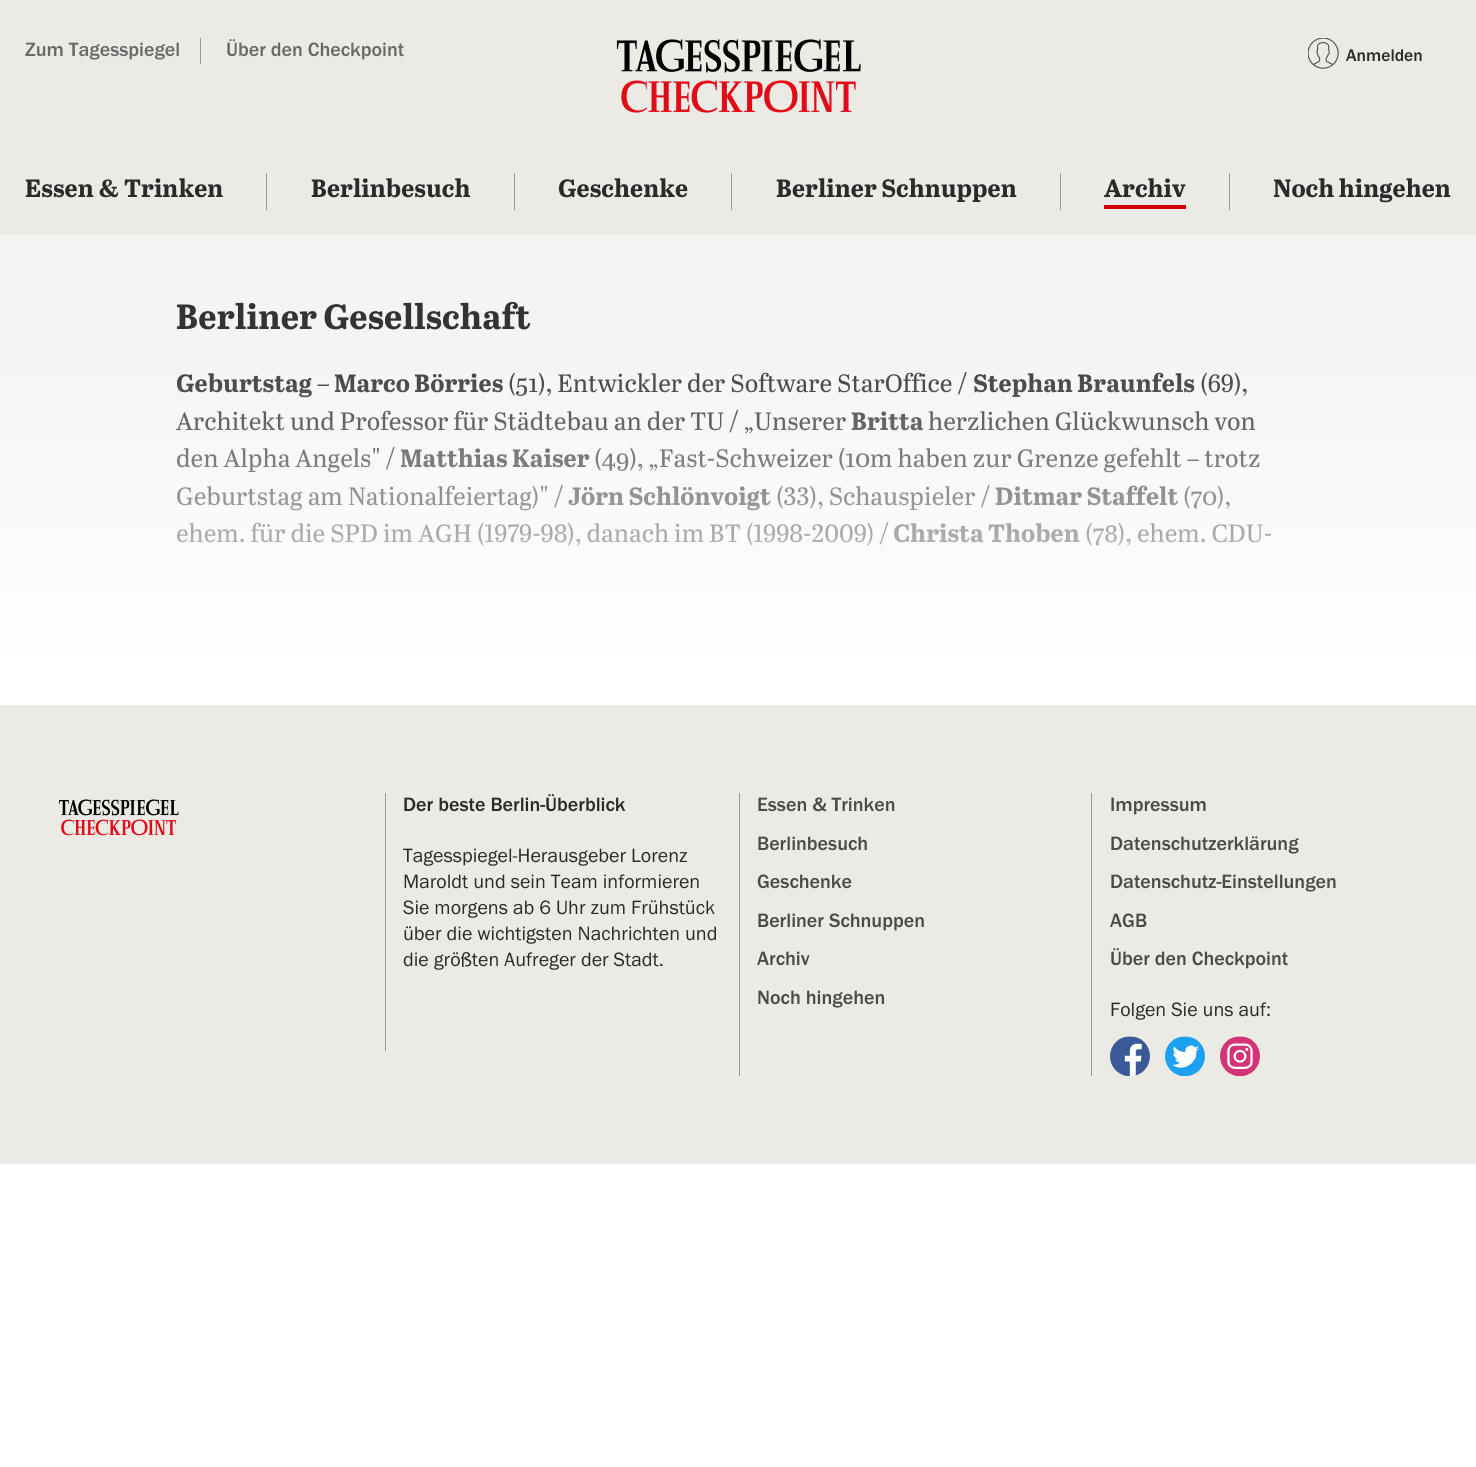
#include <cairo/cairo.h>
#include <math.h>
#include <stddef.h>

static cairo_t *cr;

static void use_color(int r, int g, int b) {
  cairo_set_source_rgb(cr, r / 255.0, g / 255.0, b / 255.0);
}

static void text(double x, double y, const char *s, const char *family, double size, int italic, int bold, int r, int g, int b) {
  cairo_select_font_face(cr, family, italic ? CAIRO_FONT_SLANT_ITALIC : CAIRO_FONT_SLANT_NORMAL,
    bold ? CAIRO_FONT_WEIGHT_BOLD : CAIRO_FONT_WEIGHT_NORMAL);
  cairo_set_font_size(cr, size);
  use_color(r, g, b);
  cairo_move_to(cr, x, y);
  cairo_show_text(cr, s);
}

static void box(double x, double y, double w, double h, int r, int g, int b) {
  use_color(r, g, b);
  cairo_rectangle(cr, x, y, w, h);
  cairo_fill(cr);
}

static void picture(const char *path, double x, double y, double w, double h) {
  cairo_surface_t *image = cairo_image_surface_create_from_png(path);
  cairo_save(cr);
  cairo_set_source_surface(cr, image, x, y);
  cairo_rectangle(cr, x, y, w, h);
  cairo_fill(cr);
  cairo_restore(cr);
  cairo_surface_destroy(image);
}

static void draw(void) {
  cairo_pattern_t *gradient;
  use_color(255, 255, 255);
  cairo_paint(cr);
  box(0, 0, 1476, 235, 235, 234, 228);
  box(200, 38, 1, 26, 151, 151, 151);
  picture("img_01.png", 616, 39, 245, 74);
  picture("img_02.png", 1308, 38, 31, 31);
  box(266, 173, 1, 37, 151, 151, 151);
  box(514, 173, 1, 37, 151, 151, 151);
  box(731, 173, 1, 37, 151, 151, 151);
  box(1060, 173, 1, 37, 151, 151, 151);
  box(1229, 173, 1, 37, 151, 151, 151);
  box(1104, 205, 82, 4, 206, 0, 0);
  box(0, 235, 1476, 431, 245, 244, 242);
  box(0, 705, 1476, 459, 235, 234, 228);
  picture("img_03.png", 59, 799, 120, 37);
  box(385, 793, 1, 258, 151, 151, 151);
  box(739, 793, 1, 283, 151, 151, 151);
  box(1091, 793, 1, 283, 151, 151, 151);
  picture("img_04.png", 1110, 1036, 40, 40);
  picture("img_05.png", 1165, 1036, 40, 40);
  picture("img_06.png", 1220, 1036, 40, 40);
  text(25, 56, "Zum Tagesspiegel", "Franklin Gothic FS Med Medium", 20, 0, 0, 105, 105, 105);
  text(226, 56, "Über den Checkpoint", "Franklin Gothic FS Med Medium", 20, 0, 0, 105, 105, 105);
  text(1346, 61, "Anmelden", "Franklin Gothic FS Med Medium", 17.5, 0, 0, 42, 42, 42);
  text(25, 197, "Essen & Trinken", "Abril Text", 25, 0, 1, 42, 42, 42);
  text(311, 197, "Berlinbesuch", "Abril Text", 25, 0, 1, 42, 42, 42);
  text(558, 197, "Geschenke", "Abril Text", 25, 0, 1, 42, 42, 42);
  text(776, 197, "Berliner Schnuppen", "Abril Text", 25, 0, 1, 42, 42, 42);
  text(1104, 197, "Archiv", "Abril Text", 25, 0, 1, 42, 42, 42);
  text(1273, 197, "Noch hingehen", "Abril Text", 25, 0, 1, 42, 42, 42);
  text(176, 329, "Berliner Gesellschaft", "Abril Text", 35, 0, 1, 51, 51, 51);
  text(176, 392, "Geburtstag", "Abril Text", 25, 0, 1, 42, 42, 42);
  text(317, 392, "–", "Abril Text", 25, 0, 0, 42, 42, 42);
  text(334, 392, "Marco Börries", "Abril Text", 25, 0, 1, 42, 42, 42);
  text(508, 392, "(51), Entwickler der Software StarOffice /", "Abril Text", 25, 0, 0, 42, 42, 42);
  text(973, 392, "Stephan Braunfels", "Abril Text", 25, 0, 1, 42, 42, 42);
  text(1200, 392, "(69),", "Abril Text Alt", 25, 0, 0, 42, 42, 42);
  text(176, 430, "Architekt und Professor für Städtebau an der TU / „Unserer", "Abril Text", 25, 0, 0, 42, 42, 42);
  text(851, 430, "Britta", "Abril Text", 25, 0, 1, 42, 42, 42);
  text(928, 430, "herzlichen Glückwunsch von", "Abril Text", 25, 0, 0, 42, 42, 42);
  text(176, 467, "den Alpha Angels\" /", "Abril Text", 25, 0, 0, 42, 42, 42);
  text(400, 467, "Matthias Kaiser", "Abril Text", 25, 0, 1, 42, 42, 42);
  text(594, 467, "(49), „Fast-Schweizer (10m haben zur Grenze gefehlt – trotz", "Abril Text", 25, 0, 0, 42, 42, 42);
  text(176, 505, "Geburtstag am Nationalfeiertag)\" /", "Abril Text", 25, 0, 0, 42, 42, 42);
  text(568, 505, "Jörn Schlönvoigt", "Abril Text", 25, 0, 1, 42, 42, 42);
  text(776, 505, "(33), Schauspieler /", "Abril Text Alt", 25, 0, 0, 42, 42, 42);
  text(995, 505, "Ditmar Staffelt", "Abril Text", 25, 0, 1, 42, 42, 42);
  text(1183, 505, "(70),", "Abril Text", 25, 0, 0, 42, 42, 42);
  text(176, 542, "ehem. für die SPD im AGH (1979-98), danach im BT (1998-2009) /", "Abril Text Alt", 25, 0, 0, 42, 42, 42);
  text(893, 542, "Christa Thoben", "Abril Text", 25, 0, 1, 42, 42, 42);
  text(1085, 542, "(78), ehem. CDU-", "Abril Text", 25, 0, 0, 42, 42, 42);
  gradient = cairo_pattern_create_linear(738, 330, 738, 705);
  cairo_pattern_add_color_stop_rgba(gradient, 0, 1, 1, 1, 0);
  cairo_pattern_add_color_stop_rgba(gradient, 0.9, 1, 1, 1, 1);
  cairo_set_source(cr, gradient);
  cairo_pattern_destroy(gradient);
  cairo_rectangle(cr, 0, 372, 1476, 294);
  cairo_fill(cr);
  text(403, 811, "Der beste Berlin-Überblick", "Franklin Gothic FS Med Medium", 20, 0, 0, 42, 42, 42);
  text(403, 862, "Tagesspiegel-Herausgeber Lorenz", "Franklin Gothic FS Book", 20, 0, 0, 42, 42, 42);
  text(403, 888, "Maroldt und sein Team informieren", "Franklin Gothic FS Book", 20, 0, 0, 42, 42, 42);
  text(403, 914, "Sie morgens ab 6 Uhr zum Frühstück", "Franklin Gothic FS Book", 20, 0, 0, 42, 42, 42);
  text(403, 940, "über die wichtigsten Nachrichten und", "Franklin Gothic FS Book", 20, 0, 0, 42, 42, 42);
  text(403, 966, "die größten Aufreger der Stadt.", "Franklin Gothic FS Book", 20, 0, 0, 42, 42, 42);
  text(757, 811, "Essen & Trinken", "Franklin Gothic FS Med Medium", 20, 0, 0, 74, 74, 74);
  text(757, 850, "Berlinbesuch", "Franklin Gothic FS Med Medium", 20, 0, 0, 74, 74, 74);
  text(757, 888, "Geschenke", "Franklin Gothic FS Med Medium", 20, 0, 0, 74, 74, 74);
  text(757, 927, "Berliner Schnuppen", "Franklin Gothic FS Med Medium", 20, 0, 0, 74, 74, 74);
  text(757, 965, "Archiv", "Franklin Gothic FS Med Medium", 20, 0, 0, 74, 74, 74);
  text(757, 1004, "Noch hingehen", "Franklin Gothic FS Med Medium", 20, 0, 0, 74, 74, 74);
  text(1110, 811, "Impressum", "Franklin Gothic FS Med Medium", 20, 0, 0, 74, 74, 74);
  text(1110, 850, "Datenschutzerklärung", "Franklin Gothic FS Med Medium", 20, 0, 0, 74, 74, 74);
  text(1110, 888, "Datenschutz-Einstellungen", "Franklin Gothic FS Med Medium", 20, 0, 0, 74, 74, 74);
  text(1110, 927, "AGB", "Franklin Gothic FS Med Medium", 20, 0, 0, 74, 74, 74);
  text(1110, 965, "Über den Checkpoint", "Franklin Gothic FS Med Medium", 20, 0, 0, 74, 74, 74);
  text(1110, 1016, "Folgen Sie uns auf:", "Franklin Gothic FS Book", 20, 0, 0, 42, 42, 42);
}

int main(void) {
  cairo_surface_t *surface = cairo_image_surface_create(CAIRO_FORMAT_RGB24, 1476, 1467);
  cr = cairo_create(surface);
  cairo_font_options_t *options = cairo_font_options_create();
  cairo_font_options_set_hint_metrics(options, CAIRO_HINT_METRICS_OFF);
  cairo_font_options_set_hint_style(options, CAIRO_HINT_STYLE_NONE);
  cairo_set_font_options(cr, options);
  cairo_set_miter_limit(cr, 4);
  draw();
  cairo_surface_write_to_png(surface, "out.png");
  cairo_font_options_destroy(options);
  cairo_destroy(cr);
  cairo_surface_destroy(surface);
  return 0;
}
